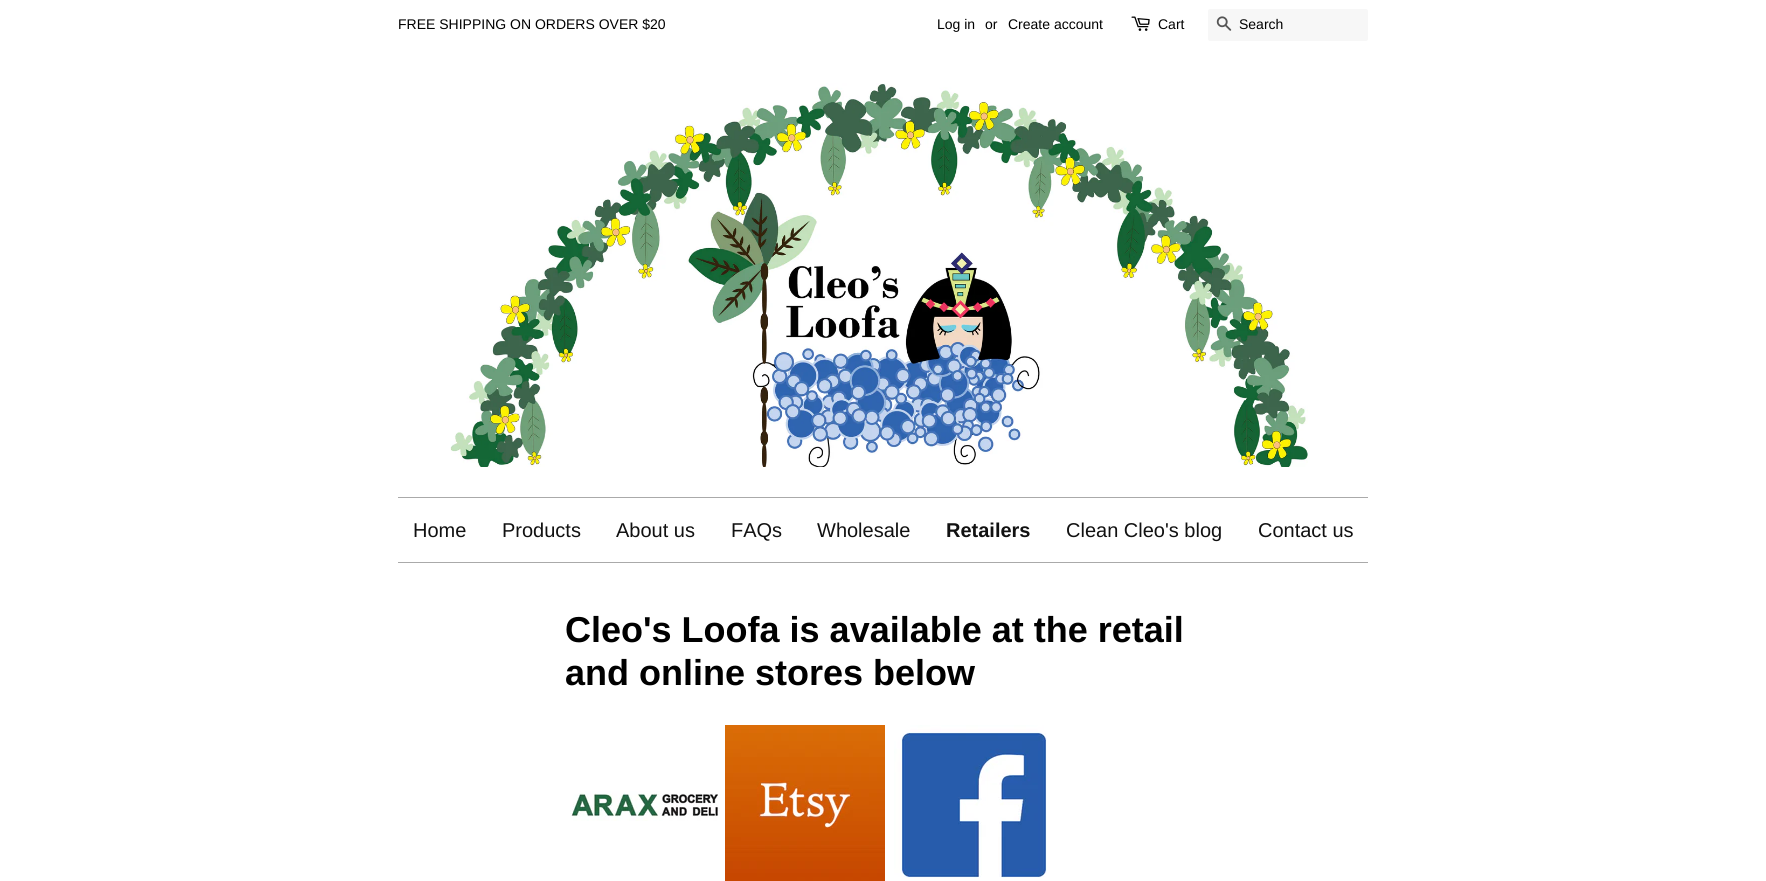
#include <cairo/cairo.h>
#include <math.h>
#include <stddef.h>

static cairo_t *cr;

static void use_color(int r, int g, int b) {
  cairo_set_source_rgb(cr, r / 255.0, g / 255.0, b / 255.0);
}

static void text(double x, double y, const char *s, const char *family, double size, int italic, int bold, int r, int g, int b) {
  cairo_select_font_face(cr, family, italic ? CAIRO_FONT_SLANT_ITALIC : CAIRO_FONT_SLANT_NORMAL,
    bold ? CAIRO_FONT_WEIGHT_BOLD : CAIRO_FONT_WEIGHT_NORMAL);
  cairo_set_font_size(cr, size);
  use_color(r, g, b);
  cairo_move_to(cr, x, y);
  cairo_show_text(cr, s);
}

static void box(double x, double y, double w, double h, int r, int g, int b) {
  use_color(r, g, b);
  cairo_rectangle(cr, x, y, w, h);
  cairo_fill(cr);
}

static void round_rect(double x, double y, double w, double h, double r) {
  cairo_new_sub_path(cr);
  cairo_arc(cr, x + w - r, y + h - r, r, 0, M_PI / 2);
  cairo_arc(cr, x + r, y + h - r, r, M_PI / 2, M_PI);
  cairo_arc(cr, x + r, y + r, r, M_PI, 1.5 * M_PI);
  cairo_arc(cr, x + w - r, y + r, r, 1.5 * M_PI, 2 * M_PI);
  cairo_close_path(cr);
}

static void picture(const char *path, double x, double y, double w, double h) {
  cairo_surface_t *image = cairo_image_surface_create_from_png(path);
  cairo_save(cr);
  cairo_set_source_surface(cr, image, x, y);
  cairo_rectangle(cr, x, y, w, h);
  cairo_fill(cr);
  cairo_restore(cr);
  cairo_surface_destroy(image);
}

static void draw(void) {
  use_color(255, 255, 255);
  cairo_paint(cr);
  picture("img_01.png", 1131, 16, 19, 15);
  use_color(247, 247, 247);
  round_rect(1208, 9, 160, 32, 2);
  cairo_fill(cr);
  picture("img_02.png", 1216, 16, 16, 15);
  picture("img_03.png", 450, 83, 858, 384);
  box(398, 497, 970, 1, 170, 170, 170);
  box(398, 562, 970, 1, 170, 170, 170);
  picture("img_04.png", 570, 791, 150, 30);
  picture("img_05.png", 725, 725, 160, 156);
  picture("img_06.png", 894, 725, 153, 153);
  text(398, 29, "FREE SHIPPING ON ORDERS OVER $20", "Liberation Sans", 14, 0, 0, 0, 0, 0);
  text(937, 29, "Log in", "Liberation Sans", 14, 0, 0, 0, 0, 0);
  text(985, 29, "or", "Liberation Sans", 14, 0, 0, 0, 0, 0);
  text(1008, 29, "Create account", "Liberation Sans", 14, 0, 0, 0, 0, 0);
  text(1158, 29, "Cart", "Liberation Sans", 14, 0, 0, 0, 0, 0);
  text(1239, 29, "Search", "Liberation Sans", 14, 0, 0, 0, 0, 0);
  text(413, 537, "Home", "Liberation Sans", 20, 0, 0, 17, 17, 17);
  text(502, 537, "Products", "Liberation Sans", 20, 0, 0, 17, 17, 17);
  text(616, 537, "About us", "Liberation Sans", 20, 0, 0, 17, 17, 17);
  text(731, 537, "FAQs", "Liberation Sans", 20, 0, 0, 17, 17, 17);
  text(817, 537, "Wholesale", "Liberation Sans", 20, 0, 0, 17, 17, 17);
  text(946, 537, "Retailers", "Liberation Sans", 20, 0, 1, 17, 17, 17);
  text(1066, 537, "Clean Cleo's blog", "Liberation Sans", 20, 0, 0, 17, 17, 17);
  text(1258, 537, "Contact us", "Liberation Sans", 20, 0, 0, 17, 17, 17);
  text(565, 642, "Cleo's Loofa is available at the retail", "Liberation Sans", 36, 0, 1, 0, 0, 0);
  text(565, 685, "and online stores below", "Liberation Sans", 36, 0, 1, 0, 0, 0);
}

int main(void) {
  cairo_surface_t *surface = cairo_image_surface_create(CAIRO_FORMAT_RGB24, 1766, 881);
  cr = cairo_create(surface);
  cairo_font_options_t *options = cairo_font_options_create();
  cairo_font_options_set_hint_metrics(options, CAIRO_HINT_METRICS_OFF);
  cairo_font_options_set_hint_style(options, CAIRO_HINT_STYLE_NONE);
  cairo_set_font_options(cr, options);
  cairo_set_miter_limit(cr, 4);
  draw();
  cairo_surface_write_to_png(surface, "out.png");
  cairo_font_options_destroy(options);
  cairo_destroy(cr);
  cairo_surface_destroy(surface);
  return 0;
}
